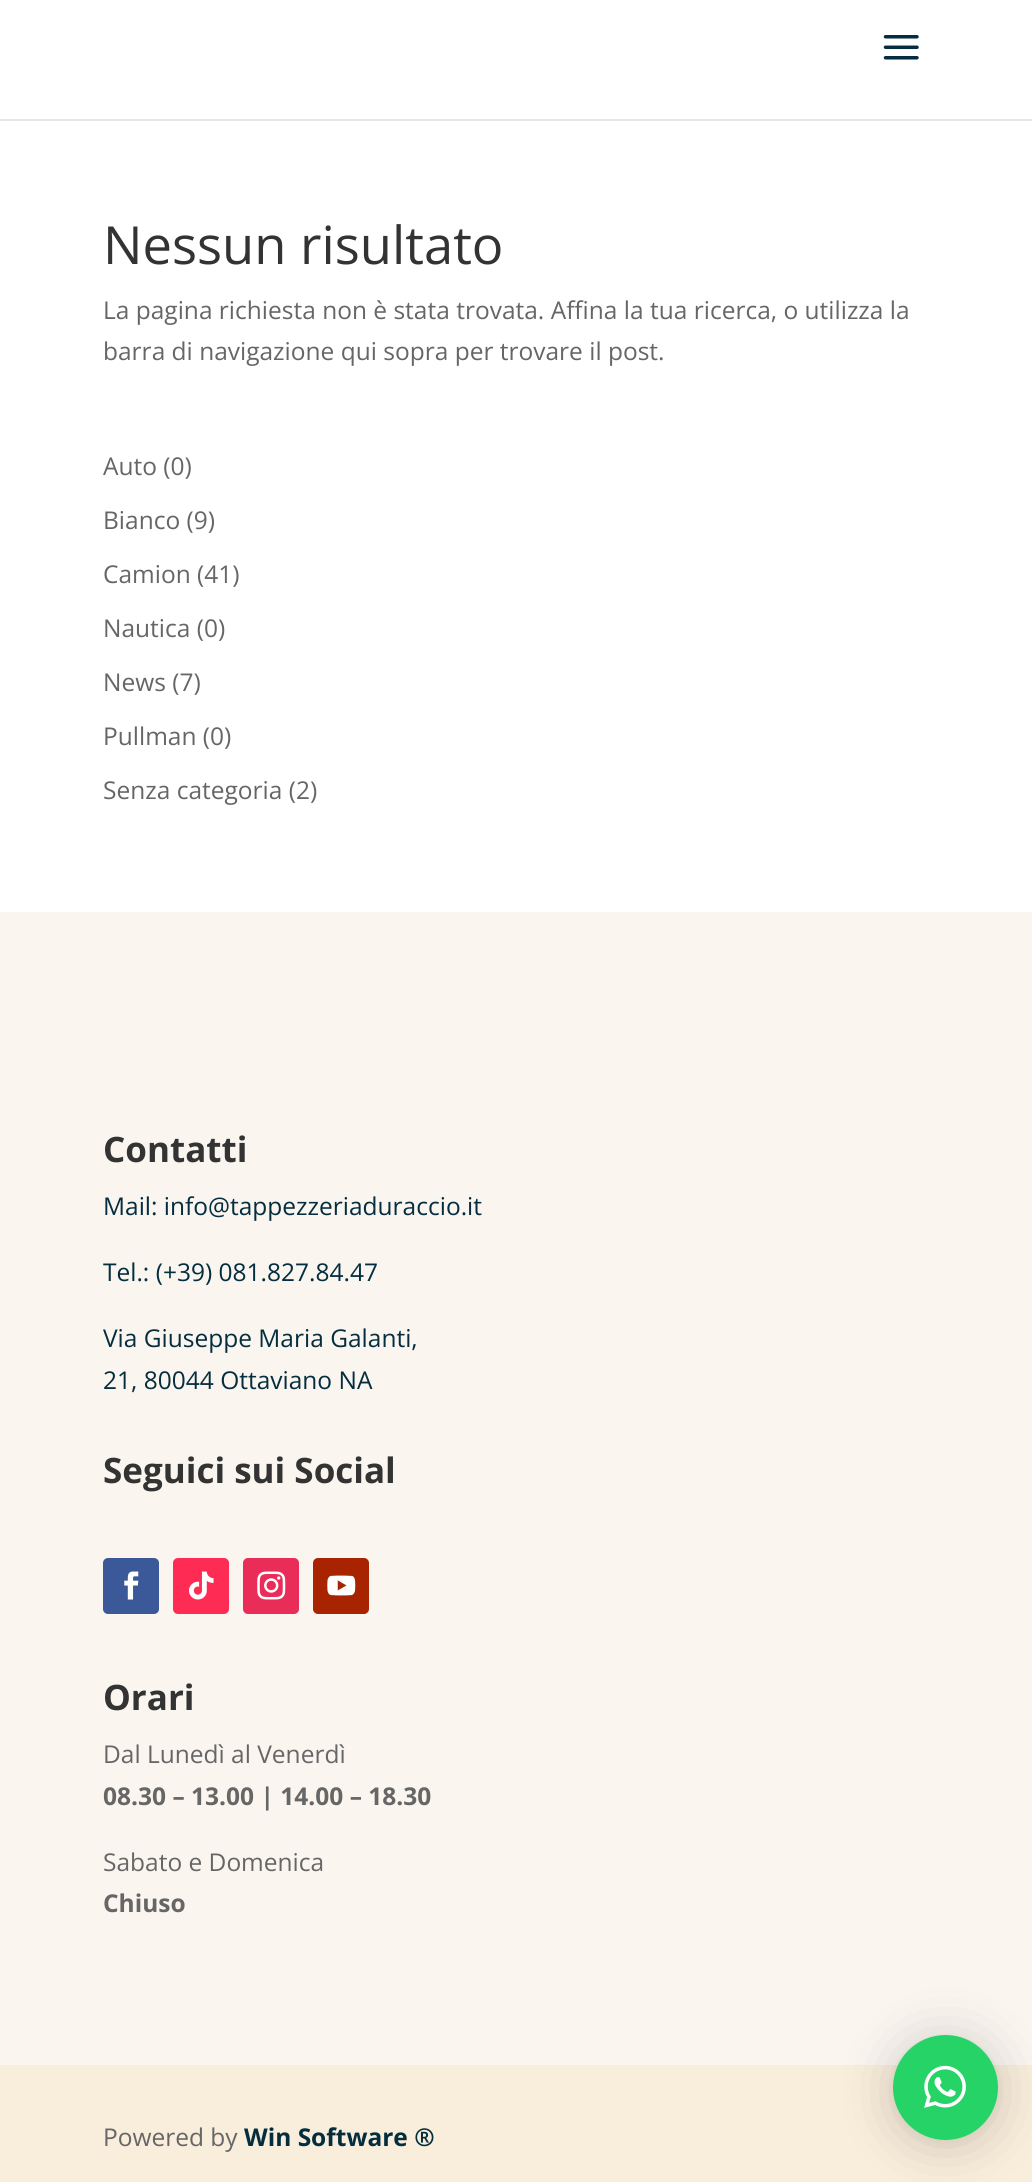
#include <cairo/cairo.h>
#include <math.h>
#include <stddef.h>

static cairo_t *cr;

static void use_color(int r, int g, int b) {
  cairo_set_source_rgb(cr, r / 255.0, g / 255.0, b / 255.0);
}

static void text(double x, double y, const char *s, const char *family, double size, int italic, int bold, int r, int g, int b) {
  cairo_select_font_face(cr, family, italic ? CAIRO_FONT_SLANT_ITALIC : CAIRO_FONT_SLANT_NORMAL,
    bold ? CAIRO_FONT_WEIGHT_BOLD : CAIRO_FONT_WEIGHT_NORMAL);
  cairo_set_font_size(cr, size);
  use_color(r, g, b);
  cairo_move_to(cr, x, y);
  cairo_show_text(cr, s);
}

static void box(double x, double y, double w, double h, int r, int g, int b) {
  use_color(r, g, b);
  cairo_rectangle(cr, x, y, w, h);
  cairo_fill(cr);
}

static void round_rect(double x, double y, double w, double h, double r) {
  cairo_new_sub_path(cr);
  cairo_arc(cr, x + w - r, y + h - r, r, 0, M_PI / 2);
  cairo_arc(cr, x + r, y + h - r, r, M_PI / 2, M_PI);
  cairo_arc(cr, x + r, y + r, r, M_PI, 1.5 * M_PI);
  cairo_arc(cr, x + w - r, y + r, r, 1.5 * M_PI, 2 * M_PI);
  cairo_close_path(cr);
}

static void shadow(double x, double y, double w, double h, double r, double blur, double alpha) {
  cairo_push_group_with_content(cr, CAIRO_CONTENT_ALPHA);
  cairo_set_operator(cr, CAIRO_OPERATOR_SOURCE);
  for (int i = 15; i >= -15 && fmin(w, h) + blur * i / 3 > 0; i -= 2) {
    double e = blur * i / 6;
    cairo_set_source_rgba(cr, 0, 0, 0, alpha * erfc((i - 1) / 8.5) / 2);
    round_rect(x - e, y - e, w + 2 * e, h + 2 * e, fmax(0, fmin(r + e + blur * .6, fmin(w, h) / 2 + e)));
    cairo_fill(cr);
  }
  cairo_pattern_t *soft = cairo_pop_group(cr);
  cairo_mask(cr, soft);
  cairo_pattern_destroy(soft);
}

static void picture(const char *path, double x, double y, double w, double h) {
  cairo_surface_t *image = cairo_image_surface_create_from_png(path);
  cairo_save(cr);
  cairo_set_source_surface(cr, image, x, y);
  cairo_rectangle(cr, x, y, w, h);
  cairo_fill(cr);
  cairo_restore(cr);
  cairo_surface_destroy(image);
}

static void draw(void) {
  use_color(255, 255, 255);
  cairo_paint(cr);
  use_color(230, 230, 230);
  cairo_new_path(cr);
  cairo_move_to(cr, 0, 119);
  cairo_line_to(cr, 0, 121);
  cairo_line_to(cr, 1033, 121);
  cairo_line_to(cr, 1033, -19);
  cairo_line_to(cr, 1032, -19);
  cairo_line_to(cr, 1032, 119);
  cairo_close_path(cr);
  cairo_fill(cr);
  picture("img_01.png", 883, 35, 36, 25);
  box(0, 912, 1032, 1153, 250, 245, 239);
  use_color(59, 89, 152);
  round_rect(103, 1558, 56, 56, 5);
  cairo_fill(cr);
  picture("img_02.png", 124, 1571, 15, 29);
  use_color(254, 44, 85);
  round_rect(173, 1558, 56, 56, 5);
  cairo_fill(cr);
  picture("img_03.png", 189, 1571, 25, 29);
  use_color(234, 44, 89);
  round_rect(243, 1558, 56, 56, 5);
  cairo_fill(cr);
  picture("img_04.png", 257, 1571, 29, 29);
  use_color(168, 36, 0);
  round_rect(313, 1558, 56, 56, 5);
  cairo_fill(cr);
  picture("img_05.png", 327, 1575, 29, 21);
  box(0, 2065, 1032, 117, 249, 237, 219);
  use_color(0, 0, 0);
  shadow(893, 2039, 105, 105, 52.5, 28, 0.16);
  shadow(893, 2037, 105, 105, 52.5, 5, 0.06);
  use_color(37, 211, 102);
  cairo_arc(cr, 945.5, 2087.5, 52.5, 0, 2 * M_PI);
  cairo_fill(cr);
  picture("img_06.png", 924, 2065, 42, 43);
  text(103, 264, "Nessun risultato", "Open Sans", 52.5, 0, 0, 51, 51, 51);
  text(103, 319, "La pagina richiesta non è stata trovata. Affina la tua ricerca, o utilizza la", "Open Sans", 24.5, 0, 0, 102, 102, 102);
  text(103, 360, "barra di navigazione qui sopra per trovare il post.", "Open Sans", 24.5, 0, 0, 102, 102, 102);
  text(103, 475, "Auto (0)", "Open Sans", 24.5, 0, 0, 102, 102, 102);
  text(103, 529, "Bianco (9)", "Open Sans", 24.5, 0, 0, 102, 102, 102);
  text(103, 583, "Camion (41)", "Open Sans", 24.5, 0, 0, 102, 102, 102);
  text(103, 637, "Nautica (0)", "Open Sans", 24.5, 0, 0, 102, 102, 102);
  text(103, 691, "News (7)", "Open Sans", 24.5, 0, 0, 102, 102, 102);
  text(103, 745, "Pullman (0)", "Open Sans", 24.5, 0, 0, 102, 102, 102);
  text(103, 799, "Senza categoria (2)", "Open Sans", 24.5, 0, 0, 102, 102, 102);
  text(103, 1162, "Contatti", "Open Sans", 35, 0, 1, 51, 51, 51);
  text(103, 1215, "Mail: info@tappezzeriaduraccio.it", "Open Sans", 24.5, 0, 0, 4, 46, 63);
  text(103, 1281, "Tel.: (+39) 081.827.84.47", "Open Sans", 24.5, 0, 0, 4, 46, 63);
  text(103, 1347, "Via Giuseppe Maria Galanti,", "Open Sans", 24.5, 0, 0, 4, 46, 63);
  text(103, 1389, "21, 80044 Ottaviano NA", "Open Sans", 24.5, 0, 0, 4, 46, 63);
  text(103, 1483, "Seguici sui Social", "Open Sans", 35, 0, 1, 51, 51, 51);
  text(103, 1710, "Orari", "Open Sans", 35, 0, 1, 51, 51, 51);
  text(103, 1763, "Dal Lunedì al Venerdì", "Open Sans", 24.5, 0, 0, 102, 102, 102);
  text(103, 1805, "08.30 – 13.00 | 14.00 – 18.30", "Open Sans", 24.5, 0, 1, 102, 102, 102);
  text(103, 1871, "Sabato e Domenica", "Open Sans", 24.5, 0, 0, 102, 102, 102);
  text(103, 1912, "Chiuso", "Open Sans", 24.5, 0, 1, 102, 102, 102);
  text(103, 2146, "Powered by", "Open Sans", 24.5, 0, 0, 102, 102, 102);
  text(244, 2146, "Win Software ®", "Open Sans", 24.5, 0, 1, 4, 46, 63);
}

int main(void) {
  cairo_surface_t *surface = cairo_image_surface_create(CAIRO_FORMAT_RGB24, 1032, 2182);
  cr = cairo_create(surface);
  cairo_font_options_t *options = cairo_font_options_create();
  cairo_font_options_set_hint_metrics(options, CAIRO_HINT_METRICS_OFF);
  cairo_font_options_set_hint_style(options, CAIRO_HINT_STYLE_NONE);
  cairo_set_font_options(cr, options);
  cairo_set_miter_limit(cr, 4);
  draw();
  cairo_surface_write_to_png(surface, "out.png");
  cairo_font_options_destroy(options);
  cairo_destroy(cr);
  cairo_surface_destroy(surface);
  return 0;
}
